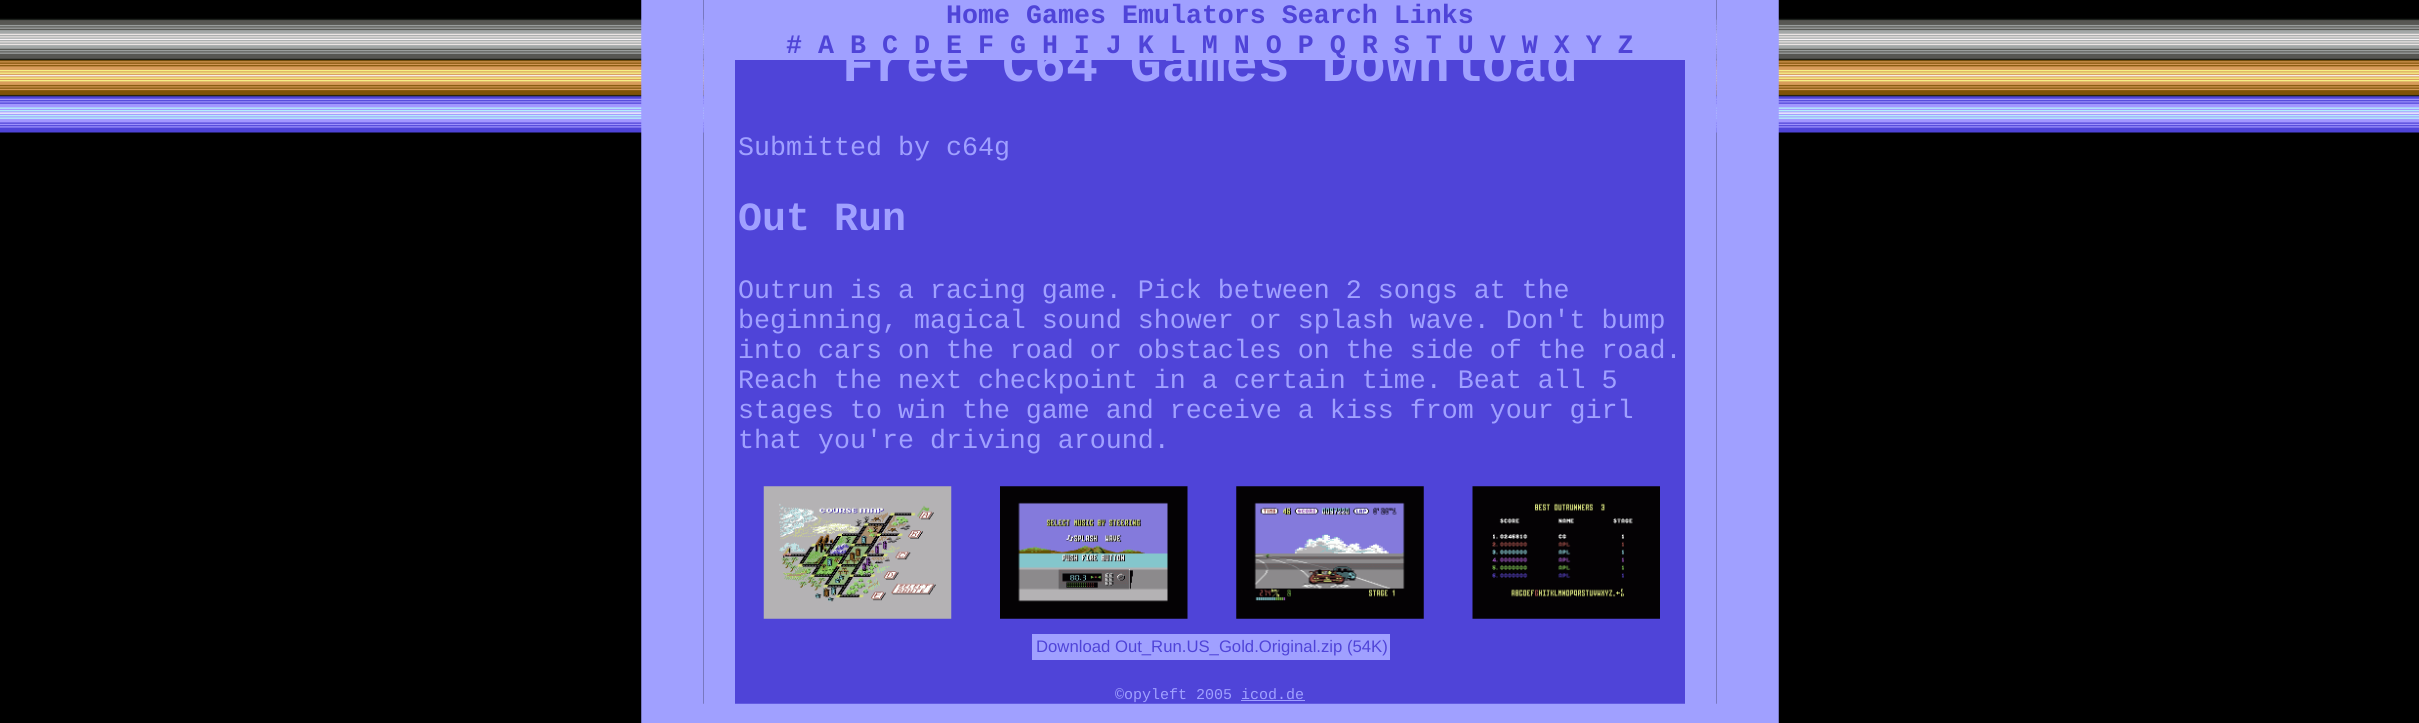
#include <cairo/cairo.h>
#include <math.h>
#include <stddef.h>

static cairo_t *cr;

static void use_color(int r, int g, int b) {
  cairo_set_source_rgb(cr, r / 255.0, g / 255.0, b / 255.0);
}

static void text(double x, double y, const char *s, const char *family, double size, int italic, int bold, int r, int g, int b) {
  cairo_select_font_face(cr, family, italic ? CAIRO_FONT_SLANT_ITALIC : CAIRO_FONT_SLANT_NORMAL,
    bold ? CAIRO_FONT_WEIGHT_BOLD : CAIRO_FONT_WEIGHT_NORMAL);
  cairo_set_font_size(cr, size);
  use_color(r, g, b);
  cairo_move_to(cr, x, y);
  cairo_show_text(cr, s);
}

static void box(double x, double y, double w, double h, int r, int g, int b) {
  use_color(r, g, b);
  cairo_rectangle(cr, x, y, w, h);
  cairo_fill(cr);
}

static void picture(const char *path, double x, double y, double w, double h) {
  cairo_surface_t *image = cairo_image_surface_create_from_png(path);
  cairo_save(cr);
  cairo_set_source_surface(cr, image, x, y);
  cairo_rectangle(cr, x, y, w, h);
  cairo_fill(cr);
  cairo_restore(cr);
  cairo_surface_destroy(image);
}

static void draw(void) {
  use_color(0, 0, 0);
  cairo_paint(cr);
  picture("img_01.png", 0, 18, 2419, 115);
  box(735, 60, 950, 644, 79, 68, 216);
  cairo_new_path(cr);
  cairo_move_to(cr, 672.5, -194);
  cairo_line_to(cr, 1747.5, -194);
  cairo_line_to(cr, 1747.5, 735);
  cairo_line_to(cr, 672.5, 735);
  cairo_close_path(cr);
  use_color(160, 160, 255);
  cairo_set_line_width(cr, 62.5);
  cairo_stroke(cr);
  box(1685, 0, 31, 704, 160, 160, 255);
  box(704, 0, 31, 704, 160, 160, 255);
  box(735, 0, 950, 60, 160, 160, 255);
  picture("img_02.png", 763, 486, 189, 133);
  picture("img_03.png", 1000, 486, 188, 133);
  picture("img_04.png", 1236, 486, 188, 133);
  picture("img_05.png", 1472, 486, 188, 133);
  box(1032, 634, 358, 26, 160, 160, 255);
  box(1241, 700, 64, 1, 160, 160, 255);
  text(946, 23, "Home Games Emulators Search Links", "Liberation Mono", 26.65, 0, 1, 79, 68, 216);
  text(842, 81, "Free C64 Games Download", "Liberation Mono", 53.3, 0, 1, 160, 160, 255);
  text(786, 53, "# A B C D E F G H I J K L M N O P Q R S T U V W X Y Z", "Liberation Mono", 26.65, 0, 1, 79, 68, 216);
  text(738, 155, "Submitted by c64g", "Liberation Mono", 26.65, 0, 0, 160, 160, 255);
  text(738, 230, "Out Run", "Liberation Mono", 40, 0, 1, 160, 160, 255);
  text(738, 298, "Outrun is a racing game. Pick between 2 songs at the", "Liberation Mono", 26.65, 0, 0, 160, 160, 255);
  text(738, 328, "beginning, magical sound shower or splash wave. Don't bump", "Liberation Mono", 26.65, 0, 0, 160, 160, 255);
  text(738, 358, "into cars on the road or obstacles on the side of the road.", "Liberation Mono", 26.65, 0, 0, 160, 160, 255);
  text(738, 388, "Reach the next checkpoint in a certain time. Beat all 5", "Liberation Mono", 26.65, 0, 0, 160, 160, 255);
  text(738, 418, "stages to win the game and receive a kiss from your girl", "Liberation Mono", 26.65, 0, 0, 160, 160, 255);
  text(738, 448, "that you're driving around.", "Liberation Mono", 26.65, 0, 0, 160, 160, 255);
  text(1036, 652, "Download Out_Run.US_Gold.Original.zip (54K)", "Liberation Sans", 16.7, 0, 0, 79, 68, 216);
  text(1115, 699, "©opyleft 2005 icod.de", "Liberation Mono", 15, 0, 0, 160, 160, 255);
}

int main(void) {
  cairo_surface_t *surface = cairo_image_surface_create(CAIRO_FORMAT_RGB24, 2419, 723);
  cr = cairo_create(surface);
  cairo_font_options_t *options = cairo_font_options_create();
  cairo_font_options_set_hint_metrics(options, CAIRO_HINT_METRICS_OFF);
  cairo_font_options_set_hint_style(options, CAIRO_HINT_STYLE_NONE);
  cairo_set_font_options(cr, options);
  cairo_set_miter_limit(cr, 4);
  draw();
  cairo_surface_write_to_png(surface, "out.png");
  cairo_font_options_destroy(options);
  cairo_destroy(cr);
  cairo_surface_destroy(surface);
  return 0;
}
